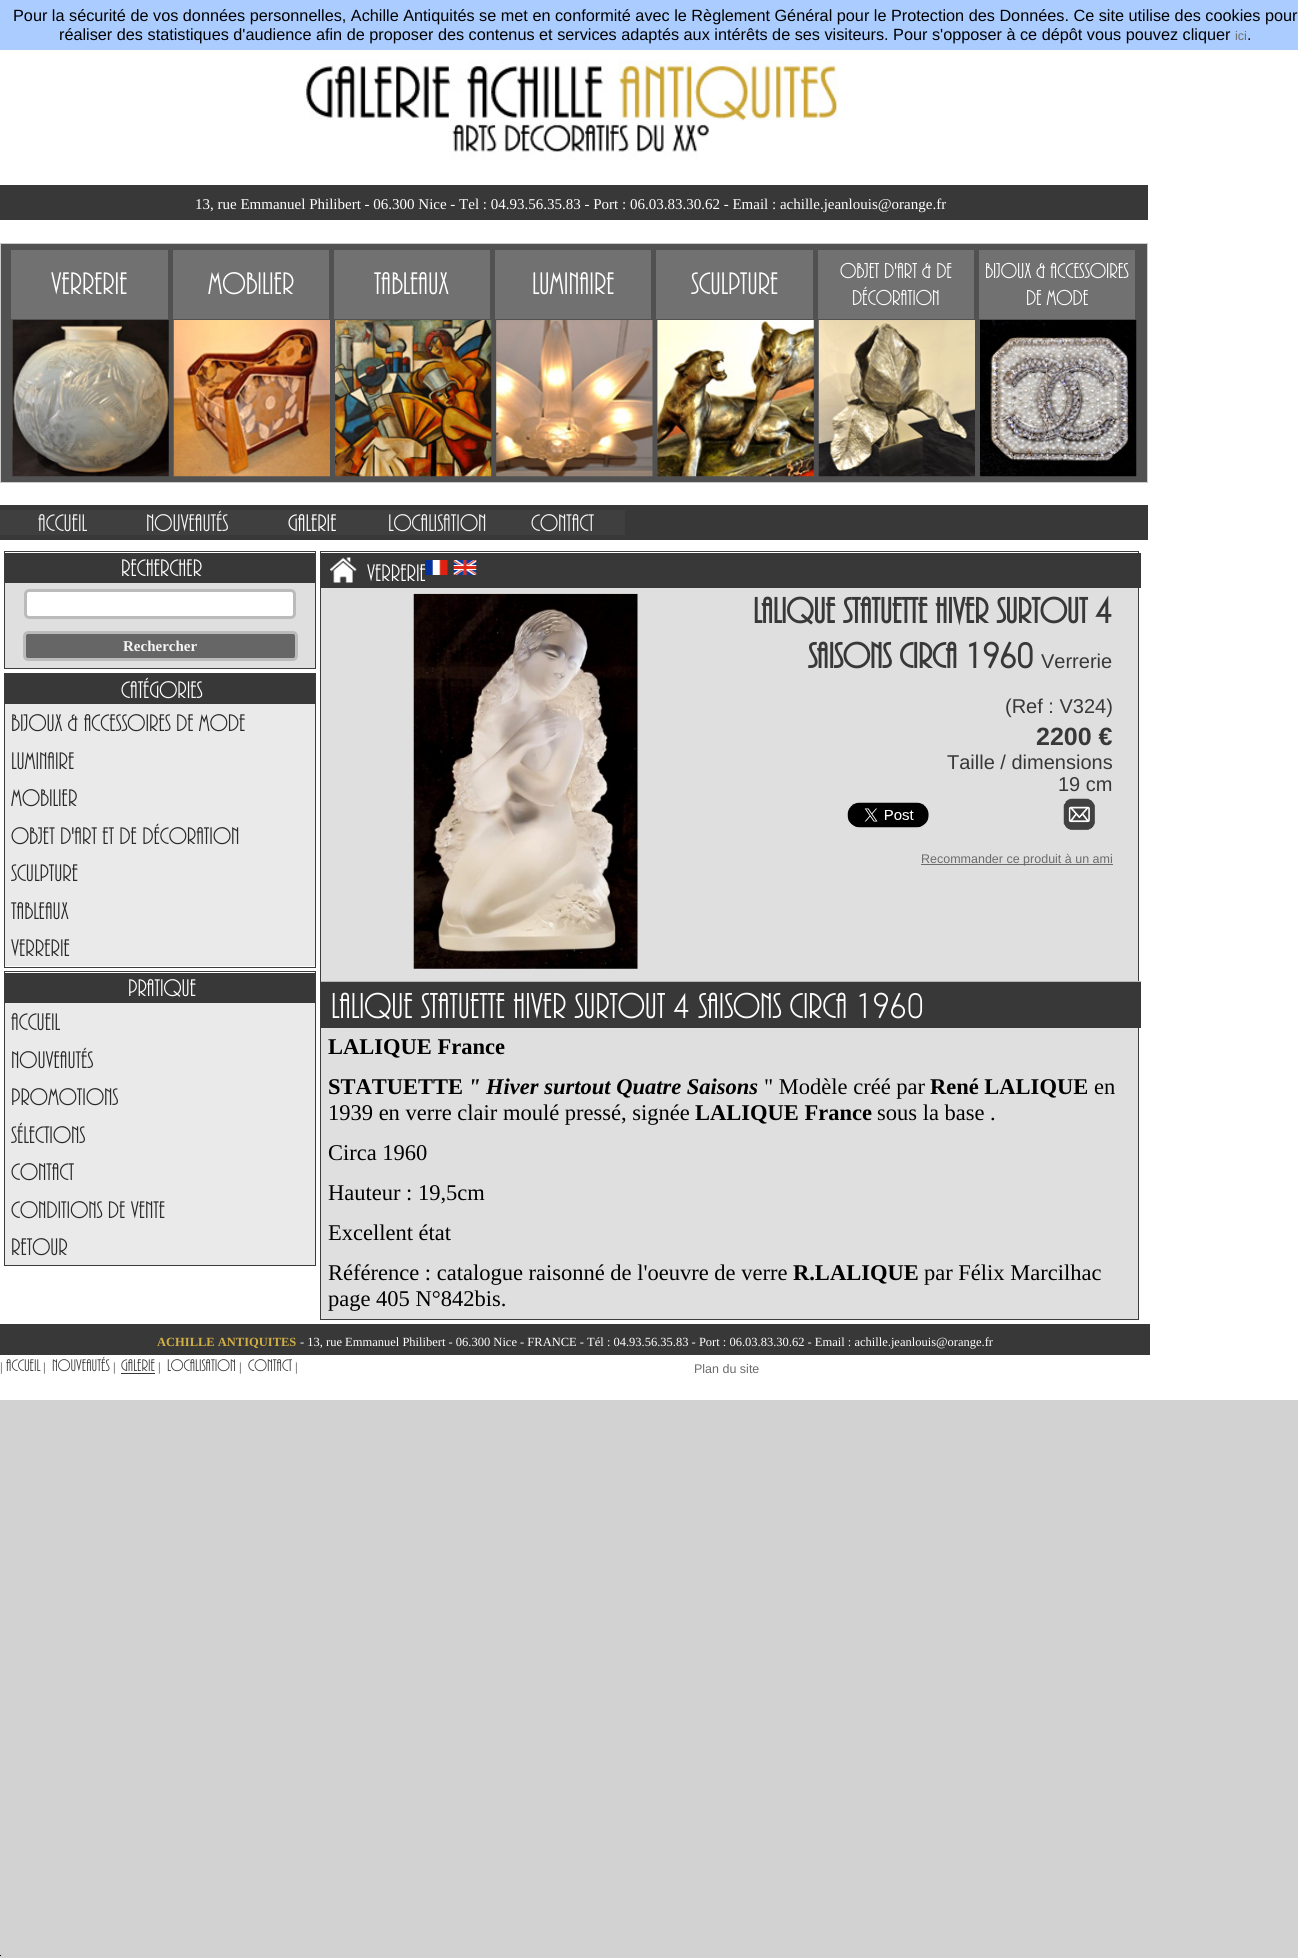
#include <cairo/cairo.h>
#include <math.h>
#include <stddef.h>

static cairo_t *cr;

static void use_color(int r, int g, int b) {
  cairo_set_source_rgb(cr, r / 255.0, g / 255.0, b / 255.0);
}

static void text(double x, double y, const char *s, const char *family, double size, int italic, int bold, int r, int g, int b) {
  cairo_select_font_face(cr, family, italic ? CAIRO_FONT_SLANT_ITALIC : CAIRO_FONT_SLANT_NORMAL,
    bold ? CAIRO_FONT_WEIGHT_BOLD : CAIRO_FONT_WEIGHT_NORMAL);
  cairo_set_font_size(cr, size);
  use_color(r, g, b);
  cairo_move_to(cr, x, y);
  cairo_show_text(cr, s);
}

static void box(double x, double y, double w, double h, int r, int g, int b) {
  use_color(r, g, b);
  cairo_rectangle(cr, x, y, w, h);
  cairo_fill(cr);
}

static void round_rect(double x, double y, double w, double h, double r) {
  cairo_new_sub_path(cr);
  cairo_arc(cr, x + w - r, y + h - r, r, 0, M_PI / 2);
  cairo_arc(cr, x + r, y + h - r, r, M_PI / 2, M_PI);
  cairo_arc(cr, x + r, y + r, r, M_PI, 1.5 * M_PI);
  cairo_arc(cr, x + w - r, y + r, r, 1.5 * M_PI, 2 * M_PI);
  cairo_close_path(cr);
}

static void picture(const char *path, double x, double y, double w, double h) {
  cairo_surface_t *image = cairo_image_surface_create_from_png(path);
  cairo_save(cr);
  cairo_set_source_surface(cr, image, x, y);
  cairo_rectangle(cr, x, y, w, h);
  cairo_fill(cr);
  cairo_restore(cr);
  cairo_surface_destroy(image);
}

static void draw(void) {
  use_color(210, 210, 210);
  cairo_paint(cr);
  box(0, 0, 1298, 50, 170, 204, 255);
  box(0, 50, 1298, 1350, 255, 255, 255);
  picture("img_01.png", 304, 60, 535, 100);
  box(0, 185, 1148, 35, 56, 56, 56);
  use_color(81, 81, 81);
  cairo_rectangle(cr, 0.5, 243.5, 1147, 239);
  cairo_fill_preserve(cr);
  use_color(204, 204, 204);
  cairo_set_line_width(cr, 1);
  cairo_stroke(cr);
  box(11, 250, 157, 188, 113, 113, 113);
  cairo_rectangle(cr, 11.5, 319.5, 158, 158);
  use_color(81, 81, 81);
  cairo_stroke(cr);
  picture("img_02.png", 12, 320, 157, 157);
  box(173, 250, 156, 69, 113, 113, 113);
  picture("img_03.png", 173, 320, 157, 157);
  box(334, 250, 156, 69, 113, 113, 113);
  picture("img_04.png", 335, 320, 157, 157);
  box(495, 250, 156, 188, 113, 113, 113);
  cairo_rectangle(cr, 495.5, 319.5, 158, 158);
  use_color(81, 81, 81);
  cairo_stroke(cr);
  picture("img_05.png", 496, 320, 157, 157);
  box(656, 250, 157, 188, 113, 113, 113);
  cairo_rectangle(cr, 656.5, 319.5, 158, 158);
  use_color(81, 81, 81);
  cairo_stroke(cr);
  picture("img_06.png", 657, 320, 157, 157);
  box(818, 250, 156, 69, 113, 113, 113);
  picture("img_07.png", 818, 320, 157, 157);
  box(979, 250, 156, 69, 113, 113, 113);
  picture("img_08.png", 980, 320, 157, 157);
  box(0, 505, 1148, 35, 56, 56, 56);
  box(0, 510, 625, 25, 63, 63, 63);
  cairo_rectangle(cr, 4.5, 551.5, 311, 117);
  use_color(60, 60, 60);
  cairo_stroke(cr);
  box(5, 553, 310, 30, 56, 56, 56);
  box(5, 583, 310, 85, 223, 223, 223);
  use_color(255, 255, 255);
  round_rect(25.5, 590.5, 269, 27, 3.5);
  cairo_fill_preserve(cr);
  use_color(187, 187, 187);
  cairo_set_line_width(cr, 3);
  cairo_stroke(cr);
  use_color(102, 102, 102);
  round_rect(24.5, 632.5, 272, 27, 3.5);
  cairo_fill_preserve(cr);
  use_color(187, 187, 187);
  cairo_stroke(cr);
  cairo_rectangle(cr, 4.5, 673.5, 311, 294);
  use_color(60, 60, 60);
  cairo_set_line_width(cr, 1);
  cairo_stroke(cr);
  box(5, 674, 310, 30, 56, 56, 56);
  box(5, 704, 310, 262, 234, 234, 234);
  cairo_rectangle(cr, 4.5, 971.5, 311, 294);
  use_color(60, 60, 60);
  cairo_stroke(cr);
  box(5, 973, 310, 30, 56, 56, 56);
  box(5, 1003, 310, 262, 234, 234, 234);
  cairo_rectangle(cr, 320.5, 551.5, 818, 768);
  use_color(60, 60, 60);
  cairo_stroke(cr);
  box(321, 553, 820, 35, 56, 56, 56);
  picture("img_09.png", 330, 557, 27, 26);
  picture("img_10.png", 425, 560, 23, 15);
  picture("img_11.png", 453, 560, 24, 15);
  box(321, 588, 817, 731, 223, 223, 223);
  picture("img_12.png", 413, 593, 225, 376);
  picture("img_13.png", 847, 802, 82, 26);
  picture("img_14.png", 1063, 798, 32, 32);
  box(921, 864, 192, 1, 108, 107, 107);
  box(321, 982, 820, 46, 56, 56, 56);
  box(321, 981, 820, 1, 183, 183, 183);
  box(0, 1324, 1150, 31, 56, 56, 56);
  box(121, 1373, 34, 1, 56, 56, 56);
  box(0, 1955, 1, 1, 0, 0, 0);
  text(13, 21, "Pour la sécurité de vos données personnelles, Achille Antiquités se met en conformité avec le Règlement Général pour le Protection des Données. Ce site utilise des cookies pour", "Liberation Sans", 16.25, 0, 0, 0, 0, 0);
  text(59, 40, "réaliser des statistiques d'audience afin de proposer des contenus et services adaptés aux intérêts de ses visiteurs. Pour s'opposer à ce dépôt vous pouvez cliquer", "Liberation Sans", 16.25, 0, 0, 0, 0, 0);
  text(1235, 40, "ici", "Liberation Sans", 12.5, 0, 0, 108, 107, 107);
  text(1247, 40, ".", "Liberation Sans", 16.25, 0, 0, 0, 0, 0);
  text(195, 209, "13, rue Emmanuel Philibert - 06.300 Nice - Tel : 04.93.56.35.83 - Port : 06.03.83.30.62 - Email : achille.jeanlouis@orange.fr", "Liberation Serif", 15, 0, 0, 255, 255, 255);
  text(51, 294, "Verrerie", "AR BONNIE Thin", 32.5, 0, 0, 255, 255, 255);
  text(208, 294, "Mobilier", "AR BONNIE Thin", 32.5, 0, 0, 255, 255, 255);
  text(374, 294, "Tableaux", "AR BONNIE Thin", 32.5, 0, 0, 255, 255, 255);
  text(532, 294, "Luminaire", "AR BONNIE Thin", 32.5, 0, 0, 255, 255, 255);
  text(691, 294, "Sculpture", "AR BONNIE Thin", 32.5, 0, 0, 255, 255, 255);
  text(840, 278, "Objet d'art & de", "AR BONNIE Thin", 22.5, 0, 0, 255, 255, 255);
  text(852, 305, "Décoration", "AR BONNIE Thin", 22.5, 0, 0, 255, 255, 255);
  text(985, 278, "Bijoux & accessoires", "AR BONNIE Thin", 22.5, 0, 0, 255, 255, 255);
  text(1026, 305, "de mode", "AR BONNIE Thin", 22.5, 0, 0, 255, 255, 255);
  text(38, 531, "Accueil", "AR BONNIE Thin", 25, 0, 0, 245, 243, 244);
  text(146, 531, "Nouveautés", "AR BONNIE Thin", 25, 0, 0, 245, 243, 244);
  text(288, 531, "Galerie", "AR BONNIE Thin", 25, 0, 0, 255, 255, 255);
  text(388, 531, "Localisation", "AR BONNIE Thin", 25, 0, 0, 245, 243, 244);
  text(531, 531, "Contact", "AR BONNIE Thin", 25, 0, 0, 245, 243, 244);
  text(121, 576, "Rechercher", "AR BONNIE Thin", 25, 0, 0, 255, 255, 255);
  text(123, 651, "Rechercher", "Liberation Serif", 15, 0, 1, 245, 243, 244);
  text(121, 698, "Catégories", "AR BONNIE Thin", 25, 0, 0, 255, 255, 255);
  text(11, 731, "Bijoux & Accessoires de Mode", "AR BONNIE Thin", 25, 0, 0, 41, 41, 41);
  text(11, 769, "Luminaire", "AR BONNIE Thin", 25, 0, 0, 41, 41, 41);
  text(11, 806, "Mobilier", "AR BONNIE Thin", 25, 0, 0, 41, 41, 41);
  text(11, 844, "Objet d'art et de Décoration", "AR BONNIE Thin", 25, 0, 0, 41, 41, 41);
  text(11, 881, "Sculpture", "AR BONNIE Thin", 25, 0, 0, 41, 41, 41);
  text(11, 919, "Tableaux", "AR BONNIE Thin", 25, 0, 0, 41, 41, 41);
  text(11, 956, "Verrerie", "AR BONNIE Thin", 25, 0, 0, 41, 41, 41);
  text(128, 996, "Pratique", "AR BONNIE Thin", 25, 0, 0, 255, 255, 255);
  text(11, 1030, "Accueil", "AR BONNIE Thin", 25, 0, 0, 41, 41, 41);
  text(11, 1068, "Nouveautés", "AR BONNIE Thin", 25, 0, 0, 41, 41, 41);
  text(11, 1105, "Promotions", "AR BONNIE Thin", 25, 0, 0, 41, 41, 41);
  text(11, 1143, "Sélections", "AR BONNIE Thin", 25, 0, 0, 41, 41, 41);
  text(11, 1180, "Contact", "AR BONNIE Thin", 25, 0, 0, 41, 41, 41);
  text(11, 1218, "Conditions de vente", "AR BONNIE Thin", 25, 0, 0, 41, 41, 41);
  text(11, 1255, "Retour", "AR BONNIE Thin", 25, 0, 0, 41, 41, 41);
  text(367, 581, "Verrerie", "AR BONNIE Thin", 25, 0, 0, 255, 255, 255);
  text(753, 623, "Lalique Statuette Hiver Surtout 4", "AR BONNIE", 37.5, 0, 1, 56, 56, 56);
  text(808, 668, "Saisons Circa 1960", "AR BONNIE", 37.5, 0, 1, 56, 56, 56);
  text(1041, 668, "Verrerie", "Liberation Sans", 20, 0, 0, 56, 56, 56);
  text(1005, 713, "(Ref : V324)", "Liberation Sans", 20, 0, 0, 56, 56, 56);
  text(1036, 745, "2200 €", "Liberation Sans", 25, 0, 1, 56, 56, 56);
  text(947, 769, "Taille / dimensions", "Liberation Sans", 20, 0, 0, 56, 56, 56);
  text(1058, 791, "19 cm", "Liberation Sans", 20, 0, 0, 56, 56, 56);
  text(921, 863, "Recommander ce produit à un ami", "Liberation Sans", 12.5, 0, 0, 108, 107, 107);
  text(331, 1018, "Lalique Statuette Hiver Surtout 4 Saisons Circa 1960", "AR BONNIE Thin", 37.5, 0, 0, 255, 255, 255);
  text(328, 1054, "LALIQUE France", "Liberation Serif", 22.5, 0, 1, 0, 0, 0);
  text(328, 1094, "STATUETTE", "Liberation Serif", 22.5, 0, 1, 0, 0, 0);
  text(468, 1094, "\" Hiver surtout Quatre Saisons", "Liberation Serif", 22.5, 1, 1, 0, 0, 0);
  text(764, 1094, "\" Modèle créé par", "Liberation Serif", 22.5, 0, 0, 0, 0, 0);
  text(930, 1094, "René LALIQUE", "Liberation Serif", 22.5, 0, 1, 0, 0, 0);
  text(1094, 1094, "en", "Liberation Serif", 22.5, 0, 0, 0, 0, 0);
  text(328, 1120, "1939 en verre clair moulé pressé, signée", "Liberation Serif", 22.5, 0, 0, 0, 0, 0);
  text(695, 1120, "LALIQUE France", "Liberation Serif", 22.5, 0, 1, 0, 0, 0);
  text(877, 1120, "sous la base .", "Liberation Serif", 22.5, 0, 0, 0, 0, 0);
  text(328, 1160, "Circa 1960", "Liberation Serif", 22.5, 0, 0, 0, 0, 0);
  text(328, 1200, "Hauteur : 19,5cm", "Liberation Serif", 22.5, 0, 0, 0, 0, 0);
  text(328, 1240, "Excellent état", "Liberation Serif", 22.5, 0, 0, 0, 0, 0);
  text(328, 1280, "Référence : catalogue raisonné de l'oeuvre de verre", "Liberation Serif", 22.5, 0, 0, 0, 0, 0);
  text(793, 1280, "R.LALIQUE", "Liberation Serif", 22.5, 0, 1, 0, 0, 0);
  text(924, 1280, "par Félix Marcilhac", "Liberation Serif", 22.5, 0, 0, 0, 0, 0);
  text(328, 1306, "page 405 N°842bis.", "Liberation Serif", 22.5, 0, 0, 0, 0, 0);
  text(157, 1346, "ACHILLE ANTIQUITES", "Liberation Serif", 12.5, 0, 1, 209, 175, 69);
  text(300, 1346, "- 13, rue Emmanuel Philibert - 06.300 Nice - FRANCE - Tél : 04.93.56.35.83 - Port : 06.03.83.30.62 - Email : achille.jeanlouis@orange.fr", "Liberation Serif", 12.5, 0, 0, 255, 255, 255);
  text(0, 1371, "|", "Liberation Serif", 12.5, 0, 0, 56, 56, 56);
  text(6, 1371, "Accueil", "AR BONNIE Thin", 17.5, 0, 0, 56, 56, 56);
  text(43, 1371, "|", "Liberation Serif", 12.5, 0, 0, 56, 56, 56);
  text(52, 1371, "Nouveautés", "AR BONNIE Thin", 17.5, 0, 0, 56, 56, 56);
  text(113, 1371, "|", "Liberation Serif", 12.5, 0, 0, 56, 56, 56);
  text(121, 1371, "Galerie", "AR BONNIE Thin", 17.5, 0, 0, 56, 56, 56);
  text(158, 1371, "|", "Liberation Serif", 12.5, 0, 0, 56, 56, 56);
  text(167, 1371, "Localisation", "AR BONNIE Thin", 17.5, 0, 0, 56, 56, 56);
  text(239, 1371, "|", "Liberation Serif", 12.5, 0, 0, 56, 56, 56);
  text(248, 1371, "Contact", "AR BONNIE Thin", 17.5, 0, 0, 56, 56, 56);
  text(295, 1371, "|", "Liberation Serif", 12.5, 0, 0, 56, 56, 56);
  text(694, 1373, "Plan du site", "Liberation Sans", 12.5, 0, 0, 108, 107, 107);
}

int main(void) {
  cairo_surface_t *surface = cairo_image_surface_create(CAIRO_FORMAT_RGB24, 1298, 1958);
  cr = cairo_create(surface);
  cairo_font_options_t *options = cairo_font_options_create();
  cairo_font_options_set_hint_metrics(options, CAIRO_HINT_METRICS_OFF);
  cairo_font_options_set_hint_style(options, CAIRO_HINT_STYLE_NONE);
  cairo_set_font_options(cr, options);
  cairo_set_miter_limit(cr, 4);
  draw();
  cairo_surface_write_to_png(surface, "out.png");
  cairo_font_options_destroy(options);
  cairo_destroy(cr);
  cairo_surface_destroy(surface);
  return 0;
}
